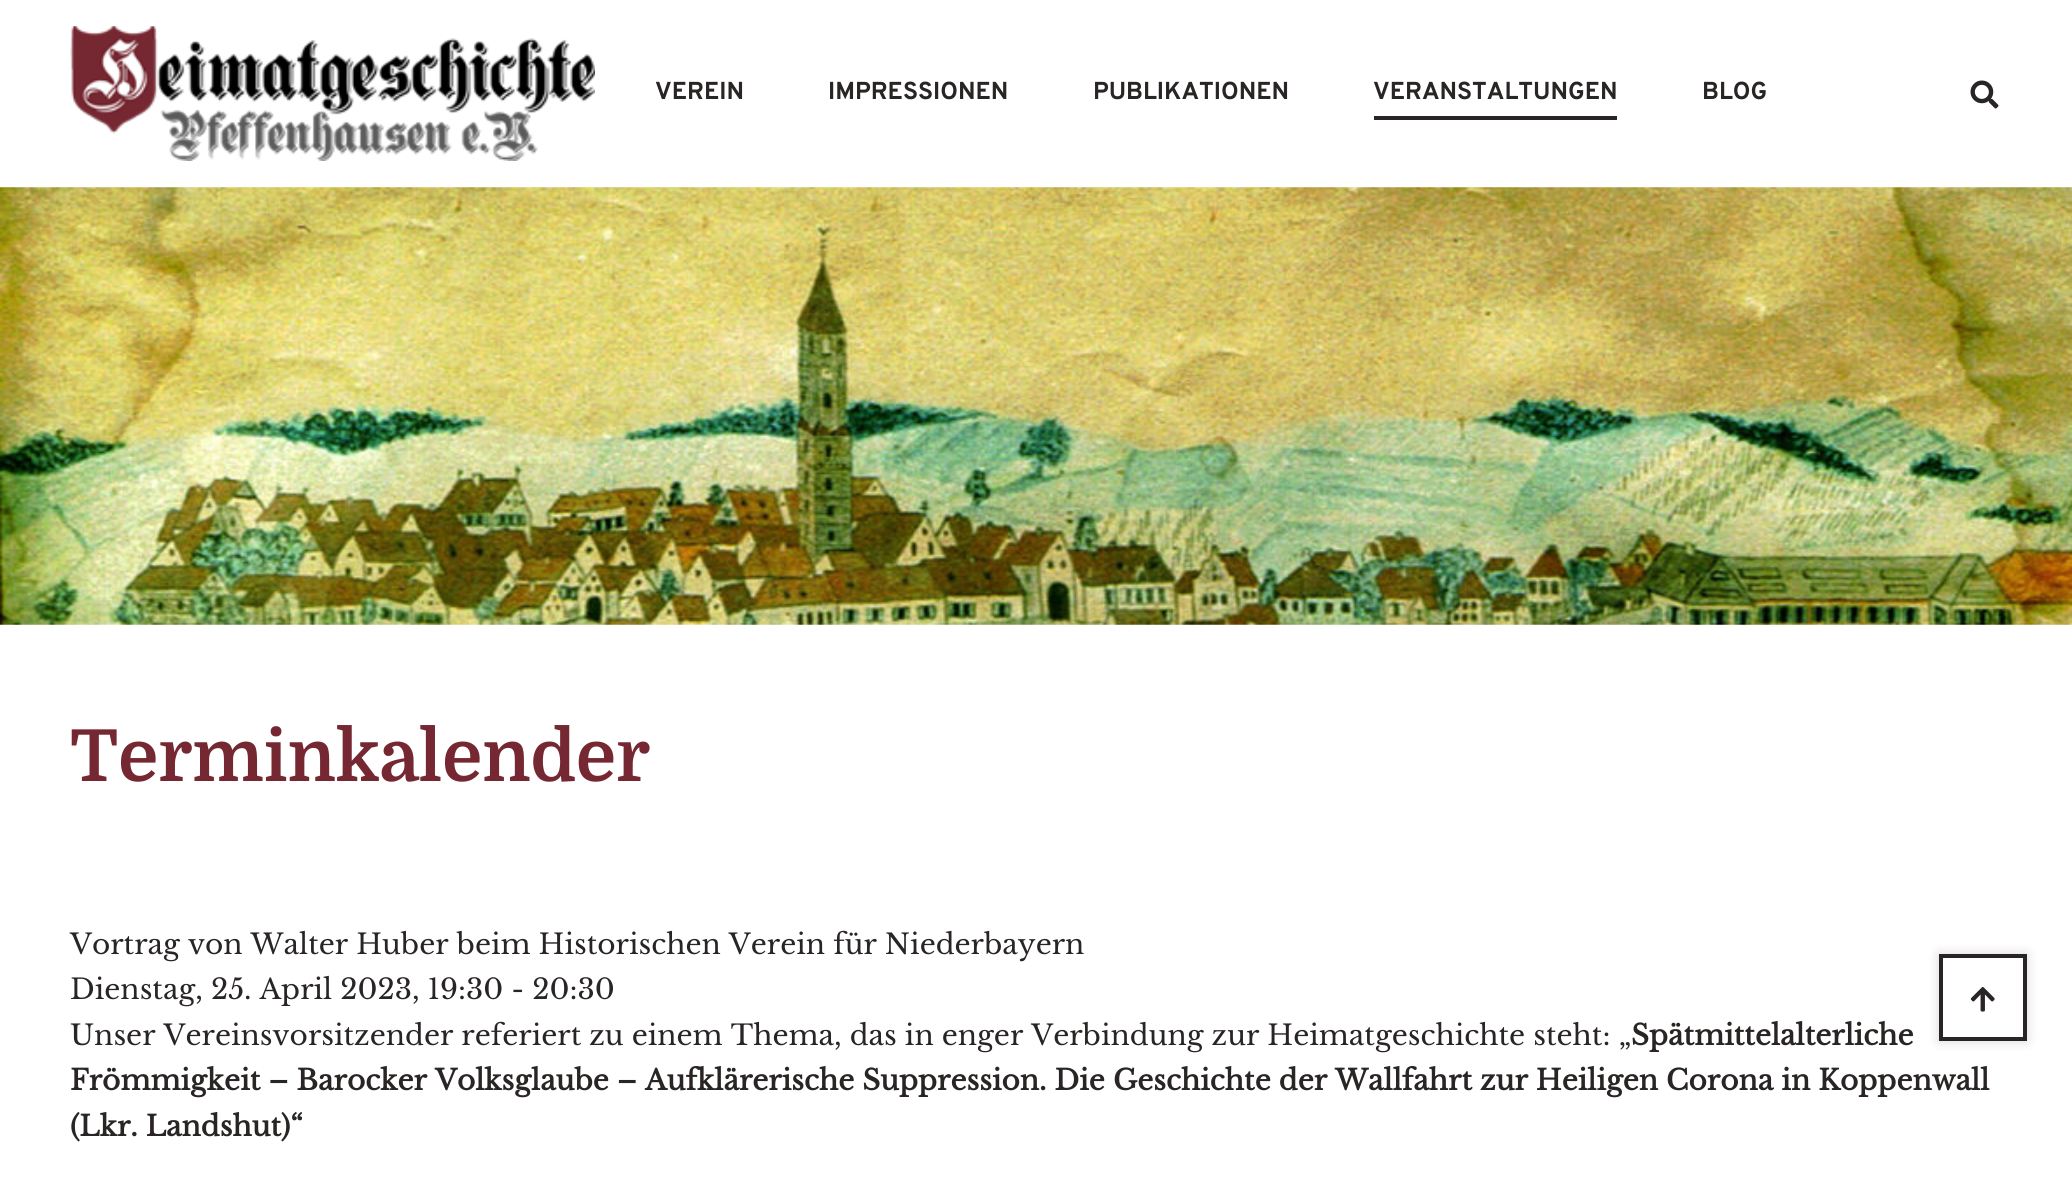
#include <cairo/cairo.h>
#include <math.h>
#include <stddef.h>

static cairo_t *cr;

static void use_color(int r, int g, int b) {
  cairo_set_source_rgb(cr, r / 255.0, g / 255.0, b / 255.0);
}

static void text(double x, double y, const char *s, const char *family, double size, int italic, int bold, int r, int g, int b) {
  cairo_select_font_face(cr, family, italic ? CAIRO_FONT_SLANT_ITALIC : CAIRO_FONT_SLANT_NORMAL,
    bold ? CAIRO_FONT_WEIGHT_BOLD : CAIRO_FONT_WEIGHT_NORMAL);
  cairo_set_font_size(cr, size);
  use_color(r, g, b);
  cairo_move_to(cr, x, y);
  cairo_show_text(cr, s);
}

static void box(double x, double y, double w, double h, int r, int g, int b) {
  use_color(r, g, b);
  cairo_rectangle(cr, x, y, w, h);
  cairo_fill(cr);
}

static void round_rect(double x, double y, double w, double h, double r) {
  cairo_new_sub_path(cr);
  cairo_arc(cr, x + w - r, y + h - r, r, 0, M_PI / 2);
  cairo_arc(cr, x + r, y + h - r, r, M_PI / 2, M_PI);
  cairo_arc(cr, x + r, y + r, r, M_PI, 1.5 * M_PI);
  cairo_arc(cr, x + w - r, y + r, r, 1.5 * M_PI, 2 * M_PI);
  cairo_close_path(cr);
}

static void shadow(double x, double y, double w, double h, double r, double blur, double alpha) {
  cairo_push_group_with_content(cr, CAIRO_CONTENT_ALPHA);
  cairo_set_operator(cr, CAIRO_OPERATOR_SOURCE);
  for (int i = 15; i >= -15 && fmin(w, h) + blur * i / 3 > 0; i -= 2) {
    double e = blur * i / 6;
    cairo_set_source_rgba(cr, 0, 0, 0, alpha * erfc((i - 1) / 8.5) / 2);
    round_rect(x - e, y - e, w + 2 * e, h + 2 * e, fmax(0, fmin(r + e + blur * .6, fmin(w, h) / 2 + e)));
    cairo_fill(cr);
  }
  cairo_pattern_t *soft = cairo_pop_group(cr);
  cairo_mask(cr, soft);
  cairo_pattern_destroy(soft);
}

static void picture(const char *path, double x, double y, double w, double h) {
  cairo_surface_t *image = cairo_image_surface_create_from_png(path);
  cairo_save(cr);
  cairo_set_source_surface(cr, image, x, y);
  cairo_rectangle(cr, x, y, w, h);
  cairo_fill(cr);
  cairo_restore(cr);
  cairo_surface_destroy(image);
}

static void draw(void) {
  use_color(255, 255, 255);
  cairo_paint(cr);
  picture("img_01.png", 70, 26, 525, 135);
  box(1374, 116, 243, 4, 41, 37, 36);
  picture("img_02.png", 1970, 80, 29, 29);
  picture("img_03.png", 0, 187, 2072, 438);
  cairo_save(cr);
  cairo_set_fill_rule(cr, CAIRO_FILL_RULE_EVEN_ODD);
  cairo_new_path(cr);
  cairo_move_to(cr, 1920, 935);
  cairo_line_to(cr, 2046, 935);
  cairo_line_to(cr, 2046, 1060);
  cairo_line_to(cr, 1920, 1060);
  cairo_close_path(cr);
  cairo_move_to(cr, 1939, 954);
  cairo_line_to(cr, 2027, 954);
  cairo_line_to(cr, 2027, 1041);
  cairo_line_to(cr, 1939, 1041);
  cairo_close_path(cr);
  cairo_clip(cr);
  use_color(0, 0, 0);
  shadow(1939, 954, 88, 87, 0, 6, 0.15);
  cairo_restore(cr);
  cairo_rectangle(cr, 1941, 956, 84, 83);
  cairo_set_line_width(cr, 4);
  cairo_stroke(cr);
  picture("img_04.png", 1970, 987, 25, 25);
  text(655, 99, "VEREIN", "Overpass", 24.5, 0, 1, 41, 37, 36);
  text(828, 99, "IMPRESSIONEN", "Overpass", 24.5, 0, 1, 41, 37, 36);
  text(1093, 99, "PUBLIKATIONEN", "Overpass", 24.5, 0, 1, 41, 37, 36);
  text(1373, 99, "VERANSTALTUNGEN", "Overpass", 24.5, 0, 1, 41, 37, 36);
  text(1702, 99, "BLOG", "Overpass", 24.5, 0, 1, 41, 37, 36);
  text(70, 781, "Terminkalender", "Domine", 71.75, 0, 1, 118, 40, 50);
  text(70, 954, "Vortrag von Walter Huber beim Historischen Verein für Niederbayern", "Libre Baskerville", 28, 0, 0, 41, 37, 36);
  text(70, 999, "Dienstag, 25. April 2023, 19:30 - 20:30", "Libre Baskerville", 28, 0, 0, 41, 37, 36);
  text(70, 1045, "Unser Vereinsvorsitzender referiert zu einem Thema, das in enger Verbindung zur Heimatgeschichte steht: „", "Libre Baskerville", 28, 0, 0, 41, 37, 36);
  text(1631, 1045, "Spätmittelalterliche", "Libre Baskerville", 28, 0, 1, 41, 37, 36);
  text(70, 1090, "Frömmigkeit – Barocker Volksglaube – Aufklärerische Suppression. Die Geschichte der Wallfahrt zur Heiligen Corona in Koppenwall", "Libre Baskerville", 28, 0, 1, 41, 37, 36);
  text(70, 1136, "(Lkr. Landshut)“", "Libre Baskerville", 28, 0, 1, 41, 37, 36);
}

int main(void) {
  cairo_surface_t *surface = cairo_image_surface_create(CAIRO_FORMAT_RGB24, 2072, 1181);
  cr = cairo_create(surface);
  cairo_font_options_t *options = cairo_font_options_create();
  cairo_font_options_set_hint_metrics(options, CAIRO_HINT_METRICS_OFF);
  cairo_font_options_set_hint_style(options, CAIRO_HINT_STYLE_NONE);
  cairo_set_font_options(cr, options);
  cairo_set_miter_limit(cr, 4);
  draw();
  cairo_surface_write_to_png(surface, "out.png");
  cairo_font_options_destroy(options);
  cairo_destroy(cr);
  cairo_surface_destroy(surface);
  return 0;
}
